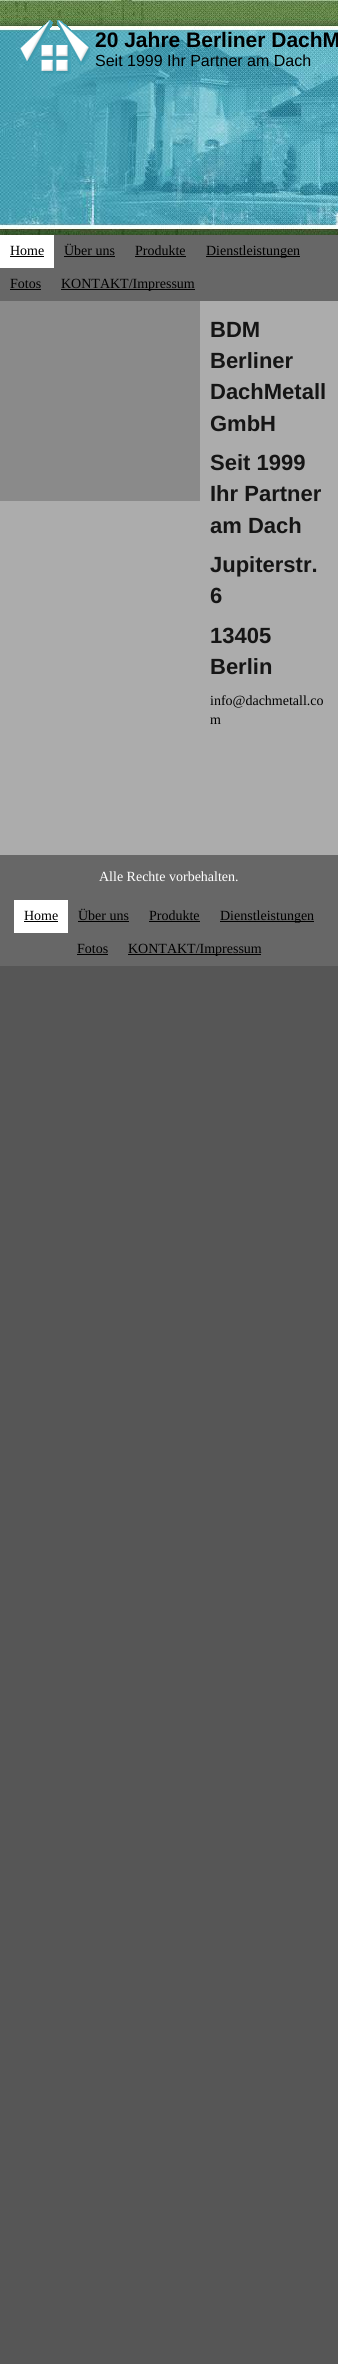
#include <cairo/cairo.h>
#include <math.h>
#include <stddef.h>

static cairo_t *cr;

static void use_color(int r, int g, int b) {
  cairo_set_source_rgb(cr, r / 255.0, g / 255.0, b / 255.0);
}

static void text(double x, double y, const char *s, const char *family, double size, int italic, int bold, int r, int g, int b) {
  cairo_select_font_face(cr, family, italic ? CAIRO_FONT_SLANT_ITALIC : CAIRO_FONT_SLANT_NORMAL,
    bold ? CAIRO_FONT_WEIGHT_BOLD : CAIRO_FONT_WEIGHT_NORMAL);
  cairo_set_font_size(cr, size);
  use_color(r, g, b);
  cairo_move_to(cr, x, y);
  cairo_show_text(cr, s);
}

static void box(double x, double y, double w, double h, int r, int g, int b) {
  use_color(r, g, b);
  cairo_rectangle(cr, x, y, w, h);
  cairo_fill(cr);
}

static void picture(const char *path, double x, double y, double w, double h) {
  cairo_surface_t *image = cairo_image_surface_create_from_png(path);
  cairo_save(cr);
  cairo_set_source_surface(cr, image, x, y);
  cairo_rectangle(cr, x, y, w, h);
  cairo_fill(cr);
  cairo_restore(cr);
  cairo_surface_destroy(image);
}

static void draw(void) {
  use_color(86, 86, 86);
  cairo_paint(cr);
  box(0, 235, 338, 66, 103, 103, 103);
  picture("img_01.png", 0, 0, 338, 235);
  picture("img_02.png", 20, 20, 70, 54);
  box(0, 235, 54, 33, 255, 255, 255);
  box(10, 256, 34, 1, 0, 0, 0);
  box(64, 256, 51, 1, 0, 0, 0);
  box(135, 256, 51, 1, 0, 0, 0);
  box(206, 256, 94, 1, 0, 0, 0);
  box(10, 289, 31, 1, 0, 0, 0);
  box(61, 289, 134, 1, 0, 0, 0);
  box(0, 301, 338, 554, 172, 172, 172);
  box(0, 301, 200, 200, 138, 138, 138);
  box(0, 855, 338, 111, 103, 103, 103);
  box(14, 900, 54, 33, 255, 255, 255);
  box(24, 921, 34, 1, 0, 0, 0);
  box(78, 921, 51, 1, 0, 0, 0);
  box(149, 921, 51, 1, 0, 0, 0);
  box(220, 921, 94, 1, 0, 0, 0);
  box(77, 954, 31, 1, 0, 0, 0);
  box(128, 954, 133, 1, 0, 0, 0);
  text(95, 47, "20 Jahre Berliner DachM", "Liberation Sans", 21, 0, 1, 0, 0, 0);
  text(95, 66, "Seit 1999 Ihr Partner am Dach", "Liberation Sans", 16, 0, 0, 0, 0, 0);
  text(10, 255, "Home", "Liberation Serif", 14, 0, 0, 0, 0, 0);
  text(64, 255, "Über uns", "Liberation Serif", 14, 0, 0, 0, 0, 0);
  text(135, 255, "Produkte", "Liberation Serif", 14, 0, 0, 0, 0, 0);
  text(206, 255, "Dienstleistungen", "Liberation Serif", 14, 0, 0, 0, 0, 0);
  text(10, 288, "Fotos", "Liberation Serif", 14, 0, 0, 0, 0, 0);
  text(61, 288, "KONTAKT/Impressum", "Liberation Serif", 14, 0, 0, 0, 0, 0);
  text(210, 337, "BDM", "Liberation Sans", 22, 0, 1, 21, 21, 21);
  text(210, 368, "Berliner", "Liberation Sans", 22, 0, 1, 21, 21, 21);
  text(210, 399, "DachMetall", "Liberation Sans", 22, 0, 1, 21, 21, 21);
  text(210, 431, "GmbH", "Liberation Sans", 22, 0, 1, 21, 21, 21);
  text(210, 470, "Seit 1999", "Liberation Sans", 22, 0, 1, 21, 21, 21);
  text(210, 501, "Ihr Partner", "Liberation Sans", 22, 0, 1, 21, 21, 21);
  text(210, 533, "am Dach", "Liberation Sans", 22, 0, 1, 21, 21, 21);
  text(210, 572, "Jupiterstr.", "Liberation Sans", 22, 0, 1, 21, 21, 21);
  text(210, 603, "6", "Liberation Sans", 22, 0, 1, 21, 21, 21);
  text(210, 643, "13405", "Liberation Sans", 22, 0, 1, 21, 21, 21);
  text(210, 674, "Berlin", "Liberation Sans", 22, 0, 1, 21, 21, 21);
  text(210, 705, "info@dachmetall.co", "Liberation Serif", 14, 0, 0, 0, 0, 0);
  text(210, 724, "m", "Liberation Serif", 14, 0, 0, 0, 0, 0);
  text(99, 881, "Alle Rechte vorbehalten.", "Liberation Serif", 14, 0, 0, 255, 255, 255);
  text(24, 920, "Home", "Liberation Serif", 14, 0, 0, 0, 0, 0);
  text(78, 920, "Über uns", "Liberation Serif", 14, 0, 0, 0, 0, 0);
  text(149, 920, "Produkte", "Liberation Serif", 14, 0, 0, 0, 0, 0);
  text(220, 920, "Dienstleistungen", "Liberation Serif", 14, 0, 0, 0, 0, 0);
  text(77, 953, "Fotos", "Liberation Serif", 14, 0, 0, 0, 0, 0);
  text(128, 953, "KONTAKT/Impressum", "Liberation Serif", 14, 0, 0, 0, 0, 0);
}

int main(void) {
  cairo_surface_t *surface = cairo_image_surface_create(CAIRO_FORMAT_RGB24, 338, 2364);
  cr = cairo_create(surface);
  cairo_font_options_t *options = cairo_font_options_create();
  cairo_font_options_set_hint_metrics(options, CAIRO_HINT_METRICS_OFF);
  cairo_font_options_set_hint_style(options, CAIRO_HINT_STYLE_NONE);
  cairo_set_font_options(cr, options);
  cairo_set_miter_limit(cr, 4);
  draw();
  cairo_surface_write_to_png(surface, "out.png");
  cairo_font_options_destroy(options);
  cairo_destroy(cr);
  cairo_surface_destroy(surface);
  return 0;
}
